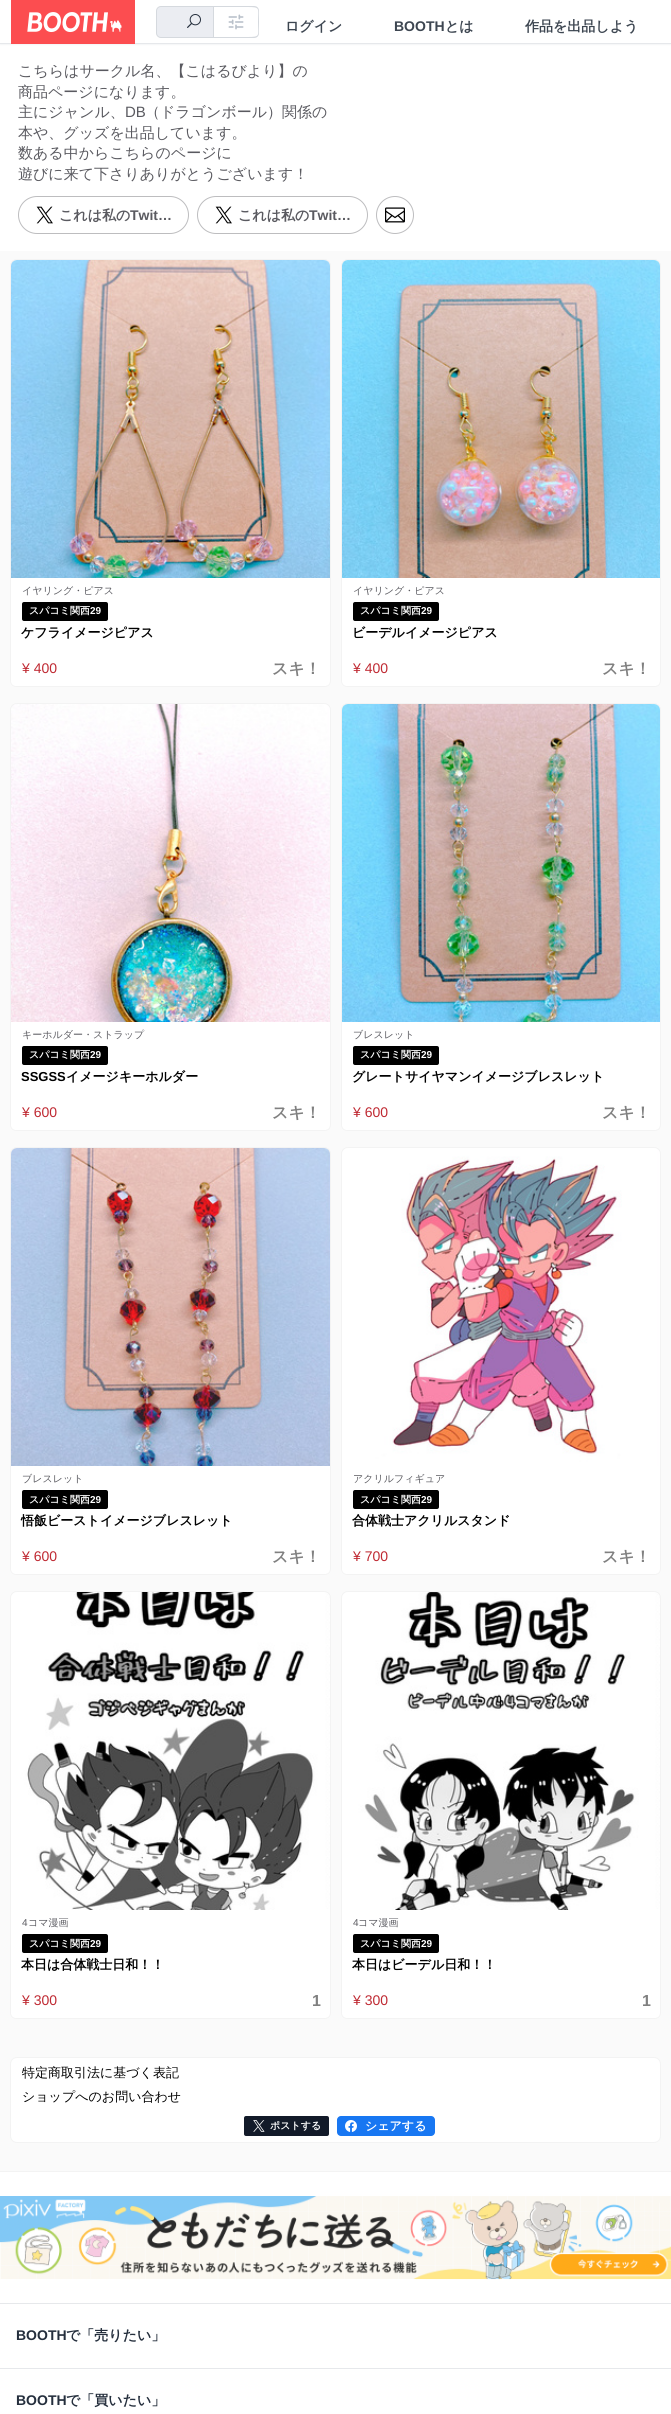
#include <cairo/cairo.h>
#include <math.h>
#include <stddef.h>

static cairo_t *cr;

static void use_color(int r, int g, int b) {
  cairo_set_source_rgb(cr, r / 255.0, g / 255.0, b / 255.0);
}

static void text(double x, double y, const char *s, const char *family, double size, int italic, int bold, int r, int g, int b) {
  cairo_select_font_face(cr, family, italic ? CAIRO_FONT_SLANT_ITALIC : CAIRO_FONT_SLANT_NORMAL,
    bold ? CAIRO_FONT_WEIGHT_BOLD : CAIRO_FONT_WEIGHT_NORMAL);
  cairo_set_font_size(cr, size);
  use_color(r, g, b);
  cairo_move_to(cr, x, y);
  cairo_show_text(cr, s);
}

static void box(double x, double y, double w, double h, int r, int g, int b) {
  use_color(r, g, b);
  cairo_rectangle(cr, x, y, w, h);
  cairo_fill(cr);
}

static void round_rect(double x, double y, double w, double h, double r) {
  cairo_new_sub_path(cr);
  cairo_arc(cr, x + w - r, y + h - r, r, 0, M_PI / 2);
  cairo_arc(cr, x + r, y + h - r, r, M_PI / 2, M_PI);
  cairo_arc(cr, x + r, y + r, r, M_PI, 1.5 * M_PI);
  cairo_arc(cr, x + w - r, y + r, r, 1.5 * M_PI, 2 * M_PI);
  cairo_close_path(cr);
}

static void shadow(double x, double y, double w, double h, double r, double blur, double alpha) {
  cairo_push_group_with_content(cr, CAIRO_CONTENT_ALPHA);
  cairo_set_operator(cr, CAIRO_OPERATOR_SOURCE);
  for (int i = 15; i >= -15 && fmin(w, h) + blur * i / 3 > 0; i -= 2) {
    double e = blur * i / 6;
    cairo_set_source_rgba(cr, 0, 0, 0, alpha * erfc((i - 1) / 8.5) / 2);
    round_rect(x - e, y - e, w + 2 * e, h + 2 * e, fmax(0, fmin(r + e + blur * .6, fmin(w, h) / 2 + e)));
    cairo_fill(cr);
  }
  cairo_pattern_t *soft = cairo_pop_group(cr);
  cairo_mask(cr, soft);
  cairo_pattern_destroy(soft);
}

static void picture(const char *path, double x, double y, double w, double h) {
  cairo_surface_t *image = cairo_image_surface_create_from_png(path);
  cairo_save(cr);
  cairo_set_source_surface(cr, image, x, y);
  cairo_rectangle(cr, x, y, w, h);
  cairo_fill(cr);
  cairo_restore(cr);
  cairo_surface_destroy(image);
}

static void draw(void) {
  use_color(250, 250, 250);
  cairo_paint(cr);
  box(0, 44, 671, 207, 255, 255, 255);
  use_color(230, 232, 235);
  shadow(0, 0, 671, 44, 0, 1, 1);
  box(0, 0, 671, 43, 255, 255, 255);
  box(0, 43, 671, 1, 230, 232, 235);
  picture("img_01.png", 11, 0, 124, 44);
  use_color(235, 237, 242);
  cairo_new_path(cr);
  cairo_move_to(cr, 161, 6.5);
  cairo_line_to(cr, 213.5, 6.5);
  cairo_line_to(cr, 213.5, 37.5);
  cairo_line_to(cr, 161, 37.5);
  cairo_curve_to(cr, 158.5, 37.5, 156.5, 35.5, 156.5, 33);
  cairo_line_to(cr, 156.5, 11);
  cairo_curve_to(cr, 156.5, 8.5, 158.5, 6.5, 161, 6.5);
  cairo_close_path(cr);
  cairo_fill_preserve(cr);
  use_color(213, 217, 222);
  cairo_set_line_width(cr, 1);
  cairo_stroke(cr);
  picture("img_02.png", 187, 14, 14, 14);
  cairo_set_fill_rule(cr, CAIRO_FILL_RULE_EVEN_ODD);
  cairo_new_path(cr);
  cairo_move_to(cr, 214, 6);
  cairo_line_to(cr, 254, 6);
  cairo_curve_to(cr, 257, 6, 259, 8, 259, 11);
  cairo_line_to(cr, 259, 33);
  cairo_curve_to(cr, 259, 36, 257, 38, 254, 38);
  cairo_line_to(cr, 214, 38);
  cairo_close_path(cr);
  cairo_move_to(cr, 214, 7);
  cairo_line_to(cr, 247, 7);
  cairo_curve_to(cr, 261, 7, 258, 8, 258, 22);
  cairo_curve_to(cr, 258, 36, 261, 37, 247, 37);
  cairo_line_to(cr, 214, 37);
  cairo_close_path(cr);
  cairo_fill(cr);
  picture("img_03.png", 228, 14, 16, 16);
  round_rect(18.5, 196.5, 170, 37, 18.5);
  use_color(189, 189, 191);
  cairo_stroke(cr);
  picture("img_04.png", 36, 206, 17, 18);
  round_rect(197.5, 196.5, 170, 37, 18.5);
  cairo_stroke(cr);
  picture("img_04.png", 215, 206, 17, 18);
  cairo_arc(cr, 395, 215, 18.5, 0, 2 * M_PI);
  cairo_stroke(cr);
  picture("img_05.png", 385, 207, 20, 16);
  use_color(243, 243, 243);
  cairo_new_path(cr);
  cairo_move_to(cr, 17, 259);
  cairo_line_to(cr, 324, 259);
  cairo_curve_to(cr, 328, 259, 331, 262, 331, 266);
  cairo_line_to(cr, 331, 578);
  cairo_line_to(cr, 10, 578);
  cairo_line_to(cr, 10, 266);
  cairo_curve_to(cr, 10, 262, 13, 259, 17, 259);
  cairo_close_path(cr);
  cairo_move_to(cr, 17, 260);
  cairo_line_to(cr, 324, 260);
  cairo_curve_to(cr, 327, 260, 330, 263, 330, 266);
  cairo_line_to(cr, 330, 578);
  cairo_line_to(cr, 11, 578);
  cairo_line_to(cr, 11, 266);
  cairo_curve_to(cr, 11, 263, 14, 260, 17, 260);
  cairo_close_path(cr);
  cairo_fill(cr);
  picture("img_06.png", 11, 260, 319, 318);
  use_color(255, 255, 255);
  cairo_new_path(cr);
  cairo_move_to(cr, 11, 578);
  cairo_line_to(cr, 330, 578);
  cairo_line_to(cr, 330, 681);
  cairo_curve_to(cr, 330, 684, 328, 686, 325, 686);
  cairo_line_to(cr, 16, 686);
  cairo_curve_to(cr, 13, 686, 11, 684, 11, 681);
  cairo_close_path(cr);
  cairo_fill(cr);
  use_color(243, 243, 243);
  cairo_new_path(cr);
  cairo_move_to(cr, 10, 578);
  cairo_line_to(cr, 331, 578);
  cairo_line_to(cr, 331, 681);
  cairo_curve_to(cr, 331, 684, 328, 687, 325, 687);
  cairo_line_to(cr, 16, 687);
  cairo_curve_to(cr, 13, 687, 10, 684, 10, 681);
  cairo_close_path(cr);
  cairo_move_to(cr, 11, 578);
  cairo_line_to(cr, 330, 578);
  cairo_line_to(cr, 330, 681);
  cairo_curve_to(cr, 330, 684, 328, 686, 325, 686);
  cairo_line_to(cr, 16, 686);
  cairo_curve_to(cr, 13, 686, 11, 684, 11, 681);
  cairo_close_path(cr);
  cairo_fill(cr);
  use_color(0, 0, 0);
  round_rect(22, 602, 86, 19, 2);
  cairo_fill(cr);
  use_color(243, 243, 243);
  cairo_new_path(cr);
  cairo_move_to(cr, 348, 259);
  cairo_line_to(cr, 654, 259);
  cairo_curve_to(cr, 658, 259, 661, 262, 661, 266);
  cairo_line_to(cr, 661, 578);
  cairo_line_to(cr, 341, 578);
  cairo_line_to(cr, 341, 266);
  cairo_curve_to(cr, 341, 262, 344, 259, 348, 259);
  cairo_close_path(cr);
  cairo_move_to(cr, 348, 260);
  cairo_line_to(cr, 654, 260);
  cairo_curve_to(cr, 657, 260, 660, 263, 660, 266);
  cairo_line_to(cr, 660, 578);
  cairo_line_to(cr, 342, 578);
  cairo_line_to(cr, 342, 266);
  cairo_curve_to(cr, 342, 263, 345, 260, 348, 260);
  cairo_close_path(cr);
  cairo_fill(cr);
  picture("img_07.png", 342, 260, 318, 318);
  use_color(255, 255, 255);
  cairo_new_path(cr);
  cairo_move_to(cr, 342, 578);
  cairo_line_to(cr, 660, 578);
  cairo_line_to(cr, 660, 681);
  cairo_curve_to(cr, 660, 684, 658, 686, 655, 686);
  cairo_line_to(cr, 347, 686);
  cairo_curve_to(cr, 344, 686, 342, 684, 342, 681);
  cairo_close_path(cr);
  cairo_fill(cr);
  use_color(243, 243, 243);
  cairo_new_path(cr);
  cairo_move_to(cr, 341, 578);
  cairo_line_to(cr, 661, 578);
  cairo_line_to(cr, 661, 681);
  cairo_curve_to(cr, 661, 684, 658, 687, 655, 687);
  cairo_line_to(cr, 347, 687);
  cairo_curve_to(cr, 344, 687, 341, 684, 341, 681);
  cairo_close_path(cr);
  cairo_move_to(cr, 342, 578);
  cairo_line_to(cr, 660, 578);
  cairo_line_to(cr, 660, 681);
  cairo_curve_to(cr, 660, 684, 658, 686, 655, 686);
  cairo_line_to(cr, 347, 686);
  cairo_curve_to(cr, 344, 686, 342, 684, 342, 681);
  cairo_close_path(cr);
  cairo_fill(cr);
  use_color(0, 0, 0);
  round_rect(353, 602, 86, 19, 2);
  cairo_fill(cr);
  use_color(243, 243, 243);
  cairo_new_path(cr);
  cairo_move_to(cr, 17, 703);
  cairo_line_to(cr, 324, 703);
  cairo_curve_to(cr, 328, 703, 331, 706, 331, 710);
  cairo_line_to(cr, 331, 1022);
  cairo_line_to(cr, 10, 1022);
  cairo_line_to(cr, 10, 710);
  cairo_curve_to(cr, 10, 706, 13, 703, 17, 703);
  cairo_close_path(cr);
  cairo_move_to(cr, 17, 704);
  cairo_line_to(cr, 324, 704);
  cairo_curve_to(cr, 327, 704, 330, 707, 330, 710);
  cairo_line_to(cr, 330, 1022);
  cairo_line_to(cr, 11, 1022);
  cairo_line_to(cr, 11, 710);
  cairo_curve_to(cr, 11, 707, 14, 704, 17, 704);
  cairo_close_path(cr);
  cairo_fill(cr);
  picture("img_08.png", 11, 704, 319, 318);
  use_color(255, 255, 255);
  cairo_new_path(cr);
  cairo_move_to(cr, 11, 1022);
  cairo_line_to(cr, 330, 1022);
  cairo_line_to(cr, 330, 1125);
  cairo_curve_to(cr, 330, 1128, 328, 1130, 325, 1130);
  cairo_line_to(cr, 16, 1130);
  cairo_curve_to(cr, 13, 1130, 11, 1128, 11, 1125);
  cairo_close_path(cr);
  cairo_fill(cr);
  use_color(243, 243, 243);
  cairo_new_path(cr);
  cairo_move_to(cr, 10, 1022);
  cairo_line_to(cr, 331, 1022);
  cairo_line_to(cr, 331, 1125);
  cairo_curve_to(cr, 331, 1128, 328, 1131, 325, 1131);
  cairo_line_to(cr, 16, 1131);
  cairo_curve_to(cr, 13, 1131, 10, 1128, 10, 1125);
  cairo_close_path(cr);
  cairo_move_to(cr, 11, 1022);
  cairo_line_to(cr, 330, 1022);
  cairo_line_to(cr, 330, 1125);
  cairo_curve_to(cr, 330, 1128, 328, 1130, 325, 1130);
  cairo_line_to(cr, 16, 1130);
  cairo_curve_to(cr, 13, 1130, 11, 1128, 11, 1125);
  cairo_close_path(cr);
  cairo_fill(cr);
  use_color(0, 0, 0);
  round_rect(22, 1046, 86, 19, 2);
  cairo_fill(cr);
  use_color(243, 243, 243);
  cairo_new_path(cr);
  cairo_move_to(cr, 348, 703);
  cairo_line_to(cr, 654, 703);
  cairo_curve_to(cr, 658, 703, 661, 706, 661, 710);
  cairo_line_to(cr, 661, 1022);
  cairo_line_to(cr, 341, 1022);
  cairo_line_to(cr, 341, 710);
  cairo_curve_to(cr, 341, 706, 344, 703, 348, 703);
  cairo_close_path(cr);
  cairo_move_to(cr, 348, 704);
  cairo_line_to(cr, 654, 704);
  cairo_curve_to(cr, 657, 704, 660, 707, 660, 710);
  cairo_line_to(cr, 660, 1022);
  cairo_line_to(cr, 342, 1022);
  cairo_line_to(cr, 342, 710);
  cairo_curve_to(cr, 342, 707, 345, 704, 348, 704);
  cairo_close_path(cr);
  cairo_fill(cr);
  picture("img_09.png", 342, 704, 318, 318);
  use_color(255, 255, 255);
  cairo_new_path(cr);
  cairo_move_to(cr, 342, 1022);
  cairo_line_to(cr, 660, 1022);
  cairo_line_to(cr, 660, 1125);
  cairo_curve_to(cr, 660, 1128, 658, 1130, 655, 1130);
  cairo_line_to(cr, 347, 1130);
  cairo_curve_to(cr, 344, 1130, 342, 1128, 342, 1125);
  cairo_close_path(cr);
  cairo_fill(cr);
  use_color(243, 243, 243);
  cairo_new_path(cr);
  cairo_move_to(cr, 341, 1022);
  cairo_line_to(cr, 661, 1022);
  cairo_line_to(cr, 661, 1125);
  cairo_curve_to(cr, 661, 1128, 658, 1131, 655, 1131);
  cairo_line_to(cr, 347, 1131);
  cairo_curve_to(cr, 344, 1131, 341, 1128, 341, 1125);
  cairo_close_path(cr);
  cairo_move_to(cr, 342, 1022);
  cairo_line_to(cr, 660, 1022);
  cairo_line_to(cr, 660, 1125);
  cairo_curve_to(cr, 660, 1128, 658, 1130, 655, 1130);
  cairo_line_to(cr, 347, 1130);
  cairo_curve_to(cr, 344, 1130, 342, 1128, 342, 1125);
  cairo_close_path(cr);
  cairo_fill(cr);
  use_color(0, 0, 0);
  round_rect(353, 1046, 86, 19, 2);
  cairo_fill(cr);
  use_color(243, 243, 243);
  cairo_new_path(cr);
  cairo_move_to(cr, 17, 1147);
  cairo_line_to(cr, 324, 1147);
  cairo_curve_to(cr, 328, 1147, 331, 1150, 331, 1154);
  cairo_line_to(cr, 331, 1466);
  cairo_line_to(cr, 10, 1466);
  cairo_line_to(cr, 10, 1154);
  cairo_curve_to(cr, 10, 1150, 13, 1147, 17, 1147);
  cairo_close_path(cr);
  cairo_move_to(cr, 17, 1148);
  cairo_line_to(cr, 324, 1148);
  cairo_curve_to(cr, 327, 1148, 330, 1151, 330, 1154);
  cairo_line_to(cr, 330, 1466);
  cairo_line_to(cr, 11, 1466);
  cairo_line_to(cr, 11, 1154);
  cairo_curve_to(cr, 11, 1151, 14, 1148, 17, 1148);
  cairo_close_path(cr);
  cairo_fill(cr);
  picture("img_10.png", 11, 1148, 319, 318);
  use_color(255, 255, 255);
  cairo_new_path(cr);
  cairo_move_to(cr, 11, 1466);
  cairo_line_to(cr, 330, 1466);
  cairo_line_to(cr, 330, 1569);
  cairo_curve_to(cr, 330, 1572, 328, 1574, 325, 1574);
  cairo_line_to(cr, 16, 1574);
  cairo_curve_to(cr, 13, 1574, 11, 1572, 11, 1569);
  cairo_close_path(cr);
  cairo_fill(cr);
  use_color(243, 243, 243);
  cairo_new_path(cr);
  cairo_move_to(cr, 10, 1466);
  cairo_line_to(cr, 331, 1466);
  cairo_line_to(cr, 331, 1569);
  cairo_curve_to(cr, 331, 1572, 328, 1575, 325, 1575);
  cairo_line_to(cr, 16, 1575);
  cairo_curve_to(cr, 13, 1575, 10, 1572, 10, 1569);
  cairo_close_path(cr);
  cairo_move_to(cr, 11, 1466);
  cairo_line_to(cr, 330, 1466);
  cairo_line_to(cr, 330, 1569);
  cairo_curve_to(cr, 330, 1572, 328, 1574, 325, 1574);
  cairo_line_to(cr, 16, 1574);
  cairo_curve_to(cr, 13, 1574, 11, 1572, 11, 1569);
  cairo_close_path(cr);
  cairo_fill(cr);
  use_color(0, 0, 0);
  round_rect(22, 1490, 86, 19, 2);
  cairo_fill(cr);
  use_color(243, 243, 243);
  cairo_new_path(cr);
  cairo_move_to(cr, 348, 1147);
  cairo_line_to(cr, 654, 1147);
  cairo_curve_to(cr, 658, 1147, 661, 1150, 661, 1154);
  cairo_line_to(cr, 661, 1466);
  cairo_line_to(cr, 341, 1466);
  cairo_line_to(cr, 341, 1154);
  cairo_curve_to(cr, 341, 1150, 344, 1147, 348, 1147);
  cairo_close_path(cr);
  cairo_move_to(cr, 348, 1148);
  cairo_line_to(cr, 654, 1148);
  cairo_curve_to(cr, 657, 1148, 660, 1151, 660, 1154);
  cairo_line_to(cr, 660, 1466);
  cairo_line_to(cr, 342, 1466);
  cairo_line_to(cr, 342, 1154);
  cairo_curve_to(cr, 342, 1151, 345, 1148, 348, 1148);
  cairo_close_path(cr);
  cairo_fill(cr);
  picture("img_11.png", 342, 1148, 318, 318);
  use_color(255, 255, 255);
  cairo_new_path(cr);
  cairo_move_to(cr, 342, 1466);
  cairo_line_to(cr, 660, 1466);
  cairo_line_to(cr, 660, 1569);
  cairo_curve_to(cr, 660, 1572, 658, 1574, 655, 1574);
  cairo_line_to(cr, 347, 1574);
  cairo_curve_to(cr, 344, 1574, 342, 1572, 342, 1569);
  cairo_close_path(cr);
  cairo_fill(cr);
  use_color(243, 243, 243);
  cairo_new_path(cr);
  cairo_move_to(cr, 341, 1466);
  cairo_line_to(cr, 661, 1466);
  cairo_line_to(cr, 661, 1569);
  cairo_curve_to(cr, 661, 1572, 658, 1575, 655, 1575);
  cairo_line_to(cr, 347, 1575);
  cairo_curve_to(cr, 344, 1575, 341, 1572, 341, 1569);
  cairo_close_path(cr);
  cairo_move_to(cr, 342, 1466);
  cairo_line_to(cr, 660, 1466);
  cairo_line_to(cr, 660, 1569);
  cairo_curve_to(cr, 660, 1572, 658, 1574, 655, 1574);
  cairo_line_to(cr, 347, 1574);
  cairo_curve_to(cr, 344, 1574, 342, 1572, 342, 1569);
  cairo_close_path(cr);
  cairo_fill(cr);
  use_color(0, 0, 0);
  round_rect(353, 1490, 86, 19, 2);
  cairo_fill(cr);
  use_color(243, 243, 243);
  cairo_new_path(cr);
  cairo_move_to(cr, 17, 1591);
  cairo_line_to(cr, 324, 1591);
  cairo_curve_to(cr, 328, 1591, 331, 1594, 331, 1598);
  cairo_line_to(cr, 331, 1910);
  cairo_line_to(cr, 10, 1910);
  cairo_line_to(cr, 10, 1598);
  cairo_curve_to(cr, 10, 1594, 13, 1591, 17, 1591);
  cairo_close_path(cr);
  cairo_move_to(cr, 17, 1592);
  cairo_line_to(cr, 324, 1592);
  cairo_curve_to(cr, 327, 1592, 330, 1595, 330, 1598);
  cairo_line_to(cr, 330, 1910);
  cairo_line_to(cr, 11, 1910);
  cairo_line_to(cr, 11, 1598);
  cairo_curve_to(cr, 11, 1595, 14, 1592, 17, 1592);
  cairo_close_path(cr);
  cairo_fill(cr);
  picture("img_12.png", 11, 1592, 319, 318);
  use_color(255, 255, 255);
  cairo_new_path(cr);
  cairo_move_to(cr, 11, 1910);
  cairo_line_to(cr, 330, 1910);
  cairo_line_to(cr, 330, 2013);
  cairo_curve_to(cr, 330, 2016, 328, 2018, 325, 2018);
  cairo_line_to(cr, 16, 2018);
  cairo_curve_to(cr, 13, 2018, 11, 2016, 11, 2013);
  cairo_close_path(cr);
  cairo_fill(cr);
  use_color(243, 243, 243);
  cairo_new_path(cr);
  cairo_move_to(cr, 10, 1910);
  cairo_line_to(cr, 331, 1910);
  cairo_line_to(cr, 331, 2013);
  cairo_curve_to(cr, 331, 2016, 328, 2019, 325, 2019);
  cairo_line_to(cr, 16, 2019);
  cairo_curve_to(cr, 13, 2019, 10, 2016, 10, 2013);
  cairo_close_path(cr);
  cairo_move_to(cr, 11, 1910);
  cairo_line_to(cr, 330, 1910);
  cairo_line_to(cr, 330, 2013);
  cairo_curve_to(cr, 330, 2016, 328, 2018, 325, 2018);
  cairo_line_to(cr, 16, 2018);
  cairo_curve_to(cr, 13, 2018, 11, 2016, 11, 2013);
  cairo_close_path(cr);
  cairo_fill(cr);
  use_color(0, 0, 0);
  round_rect(22, 1934, 86, 19, 2);
  cairo_fill(cr);
  use_color(243, 243, 243);
  cairo_new_path(cr);
  cairo_move_to(cr, 348, 1591);
  cairo_line_to(cr, 654, 1591);
  cairo_curve_to(cr, 658, 1591, 661, 1594, 661, 1598);
  cairo_line_to(cr, 661, 1910);
  cairo_line_to(cr, 341, 1910);
  cairo_line_to(cr, 341, 1598);
  cairo_curve_to(cr, 341, 1594, 344, 1591, 348, 1591);
  cairo_close_path(cr);
  cairo_move_to(cr, 348, 1592);
  cairo_line_to(cr, 654, 1592);
  cairo_curve_to(cr, 657, 1592, 660, 1595, 660, 1598);
  cairo_line_to(cr, 660, 1910);
  cairo_line_to(cr, 342, 1910);
  cairo_line_to(cr, 342, 1598);
  cairo_curve_to(cr, 342, 1595, 345, 1592, 348, 1592);
  cairo_close_path(cr);
  cairo_fill(cr);
  picture("img_13.png", 342, 1592, 318, 318);
  use_color(255, 255, 255);
  cairo_new_path(cr);
  cairo_move_to(cr, 342, 1910);
  cairo_line_to(cr, 660, 1910);
  cairo_line_to(cr, 660, 2013);
  cairo_curve_to(cr, 660, 2016, 658, 2018, 655, 2018);
  cairo_line_to(cr, 347, 2018);
  cairo_curve_to(cr, 344, 2018, 342, 2016, 342, 2013);
  cairo_close_path(cr);
  cairo_fill(cr);
  use_color(243, 243, 243);
  cairo_new_path(cr);
  cairo_move_to(cr, 341, 1910);
  cairo_line_to(cr, 661, 1910);
  cairo_line_to(cr, 661, 2013);
  cairo_curve_to(cr, 661, 2016, 658, 2019, 655, 2019);
  cairo_line_to(cr, 347, 2019);
  cairo_curve_to(cr, 344, 2019, 341, 2016, 341, 2013);
  cairo_close_path(cr);
  cairo_move_to(cr, 342, 1910);
  cairo_line_to(cr, 660, 1910);
  cairo_line_to(cr, 660, 2013);
  cairo_curve_to(cr, 660, 2016, 658, 2018, 655, 2018);
  cairo_line_to(cr, 347, 2018);
  cairo_curve_to(cr, 344, 2018, 342, 2016, 342, 2013);
  cairo_close_path(cr);
  cairo_fill(cr);
  use_color(0, 0, 0);
  round_rect(353, 1934, 86, 19, 2);
  cairo_fill(cr);
  box(0, 2171, 671, 1, 243, 243, 243);
  use_color(255, 255, 255);
  round_rect(10.5, 2057.5, 650, 85, 6.5);
  cairo_fill_preserve(cr);
  use_color(243, 243, 243);
  cairo_stroke(cr);
  use_color(18, 26, 41);
  round_rect(244, 2116, 85, 20, 2);
  cairo_fill(cr);
  picture("img_14.png", 253, 2120, 12, 12);
  use_color(24, 119, 242);
  round_rect(337, 2116, 98, 20, 4);
  cairo_fill(cr);
  picture("img_15.png", 345, 2120, 12, 12);
  box(0, 2172, 671, 242, 255, 255, 255);
  picture("img_16.png", 0, 2196, 671, 84);
  box(0, 2303, 671, 1, 230, 232, 235);
  box(0, 2368, 671, 1, 230, 232, 235);
  text(285, 31, "ログイン", "WenQuanYi Zen Hei", 14, 0, 1, 61, 70, 81);
  text(394, 31, "BOOTH", "Liberation Sans", 14, 0, 1, 61, 70, 81);
  text(445, 31, "とは", "WenQuanYi Zen Hei", 14, 0, 1, 61, 70, 81);
  text(525, 31, "作品を出品しよう", "WenQuanYi Zen Hei", 14, 0, 1, 61, 70, 81);
  text(18, 76, "こちらはサークル名、【こはるびより】の", "WenQuanYi Zen Hei Medium", 15, 0, 0, 90, 90, 96);
  text(18, 97, "商品ページになります。", "WenQuanYi Zen Hei Medium", 15, 0, 0, 90, 90, 96);
  text(18, 117, "主にジャンル、", "WenQuanYi Zen Hei Medium", 15, 0, 0, 90, 90, 96);
  text(125, 117, "DB", "Liberation Sans", 15, 0, 0, 90, 90, 96);
  text(145, 117, "（ドラゴンボール）関係の", "WenQuanYi Zen Hei Medium", 15, 0, 0, 90, 90, 96);
  text(18, 138, "本や、グッズを出品しています。", "WenQuanYi Zen Hei Medium", 15, 0, 0, 90, 90, 96);
  text(18, 158, "数ある中からこちらのページに", "WenQuanYi Zen Hei Medium", 15, 0, 0, 90, 90, 96);
  text(18, 179, "遊びに来て下さりありがとうございます！", "WenQuanYi Zen Hei Medium", 15, 0, 0, 90, 90, 96);
  text(59, 220, "これは私の", "WenQuanYi Zen Hei", 14, 0, 1, 90, 90, 96);
  text(130, 220, "Twit…", "Liberation Sans", 14, 0, 1, 90, 90, 96);
  text(238, 220, "これは私の", "WenQuanYi Zen Hei", 14, 0, 1, 90, 90, 96);
  text(309, 220, "Twit…", "Liberation Sans", 14, 0, 1, 90, 90, 96);
  text(22, 594, "イヤリング・ピアス", "WenQuanYi Zen Hei Medium", 10, 0, 0, 90, 90, 96);
  text(29, 614, "スパコミ関西", "WenQuanYi Zen Hei", 10, 0, 1, 255, 255, 255);
  text(90, 614, "29", "Liberation Sans", 10, 0, 1, 255, 255, 255);
  text(21, 637, "ケフライメージピアス", "WenQuanYi Zen Hei", 13, 0, 1, 0, 0, 0);
  text(22, 673, "¥ 400", "Liberation Sans", 14, 0, 0, 191, 41, 50);
  text(272, 674, "スキ！", "WenQuanYi Zen Hei", 16, 0, 1, 128, 128, 128);
  text(353, 594, "イヤリング・ピアス", "WenQuanYi Zen Hei Medium", 10, 0, 0, 90, 90, 96);
  text(360, 614, "スパコミ関西", "WenQuanYi Zen Hei", 10, 0, 1, 255, 255, 255);
  text(421, 614, "29", "Liberation Sans", 10, 0, 1, 255, 255, 255);
  text(352, 637, "ビーデルイメージピアス", "WenQuanYi Zen Hei", 13, 0, 1, 0, 0, 0);
  text(353, 673, "¥ 400", "Liberation Sans", 14, 0, 0, 191, 41, 50);
  text(602, 674, "スキ！", "WenQuanYi Zen Hei", 16, 0, 1, 128, 128, 128);
  text(22, 1038, "キーホルダー・ストラップ", "WenQuanYi Zen Hei Medium", 10, 0, 0, 90, 90, 96);
  text(29, 1058, "スパコミ関西", "WenQuanYi Zen Hei", 10, 0, 1, 255, 255, 255);
  text(90, 1058, "29", "Liberation Sans", 10, 0, 1, 255, 255, 255);
  text(21, 1081, "SSGSS", "Liberation Sans", 13, 0, 1, 0, 0, 0);
  text(66, 1081, "イメージキーホルダー", "WenQuanYi Zen Hei", 13, 0, 1, 0, 0, 0);
  text(22, 1117, "¥ 600", "Liberation Sans", 14, 0, 0, 191, 41, 50);
  text(272, 1118, "スキ！", "WenQuanYi Zen Hei", 16, 0, 1, 128, 128, 128);
  text(353, 1038, "ブレスレット", "WenQuanYi Zen Hei Medium", 10, 0, 0, 90, 90, 96);
  text(360, 1058, "スパコミ関西", "WenQuanYi Zen Hei", 10, 0, 1, 255, 255, 255);
  text(421, 1058, "29", "Liberation Sans", 10, 0, 1, 255, 255, 255);
  text(352, 1081, "グレートサイヤマンイメージブレスレット", "WenQuanYi Zen Hei", 13, 0, 1, 0, 0, 0);
  text(353, 1117, "¥ 600", "Liberation Sans", 14, 0, 0, 191, 41, 50);
  text(602, 1118, "スキ！", "WenQuanYi Zen Hei", 16, 0, 1, 128, 128, 128);
  text(22, 1482, "ブレスレット", "WenQuanYi Zen Hei Medium", 10, 0, 0, 90, 90, 96);
  text(29, 1503, "スパコミ関西", "WenQuanYi Zen Hei", 10, 0, 1, 255, 255, 255);
  text(90, 1503, "29", "Liberation Sans", 10, 0, 1, 255, 255, 255);
  text(21, 1525, "悟飯ビーストイメージブレスレット", "WenQuanYi Zen Hei", 13, 0, 1, 0, 0, 0);
  text(22, 1561, "¥ 600", "Liberation Sans", 14, 0, 0, 191, 41, 50);
  text(272, 1562, "スキ！", "WenQuanYi Zen Hei", 16, 0, 1, 128, 128, 128);
  text(353, 1482, "アクリルフィギュア", "WenQuanYi Zen Hei Medium", 10, 0, 0, 90, 90, 96);
  text(360, 1503, "スパコミ関西", "WenQuanYi Zen Hei", 10, 0, 1, 255, 255, 255);
  text(421, 1503, "29", "Liberation Sans", 10, 0, 1, 255, 255, 255);
  text(352, 1525, "合体戦士アクリルスタンド", "WenQuanYi Zen Hei", 13, 0, 1, 0, 0, 0);
  text(353, 1561, "¥ 700", "Liberation Sans", 14, 0, 0, 191, 41, 50);
  text(602, 1562, "スキ！", "WenQuanYi Zen Hei", 16, 0, 1, 128, 128, 128);
  text(22, 1926, "4", "Liberation Sans", 10, 0, 0, 90, 90, 96);
  text(28, 1926, "コマ漫画", "WenQuanYi Zen Hei Medium", 10, 0, 0, 90, 90, 96);
  text(29, 1947, "スパコミ関西", "WenQuanYi Zen Hei", 10, 0, 1, 255, 255, 255);
  text(90, 1947, "29", "Liberation Sans", 10, 0, 1, 255, 255, 255);
  text(21, 1969, "本日は合体戦士日和！！", "WenQuanYi Zen Hei", 13, 0, 1, 0, 0, 0);
  text(22, 2005, "¥ 300", "Liberation Sans", 14, 0, 0, 191, 41, 50);
  text(312, 2006, "1", "Liberation Sans", 16, 0, 1, 128, 128, 128);
  text(353, 1926, "4", "Liberation Sans", 10, 0, 0, 90, 90, 96);
  text(358, 1926, "コマ漫画", "WenQuanYi Zen Hei Medium", 10, 0, 0, 90, 90, 96);
  text(360, 1947, "スパコミ関西", "WenQuanYi Zen Hei", 10, 0, 1, 255, 255, 255);
  text(421, 1947, "29", "Liberation Sans", 10, 0, 1, 255, 255, 255);
  text(352, 1969, "本日はビーデル日和！！", "WenQuanYi Zen Hei", 13, 0, 1, 0, 0, 0);
  text(353, 2005, "¥ 300", "Liberation Sans", 14, 0, 0, 191, 41, 50);
  text(642, 2006, "1", "Liberation Sans", 16, 0, 1, 128, 128, 128);
  text(22, 2077, "特定商取引法に基づく表記", "WenQuanYi Zen Hei Medium", 13, 0, 0, 0, 0, 0);
  text(22, 2101, "ショップへのお問い合わせ", "WenQuanYi Zen Hei Medium", 13, 0, 0, 0, 0, 0);
  text(270, 2129, "ポストする", "WenQuanYi Zen Hei", 10, 0, 1, 255, 255, 255);
  text(365, 2130, "シェアする", "WenQuanYi Zen Hei", 12, 0, 1, 255, 255, 255);
  text(16, 2340, "BOOTH", "Liberation Sans", 14, 0, 1, 37, 47, 61);
  text(66, 2340, "で「売りたい」", "WenQuanYi Zen Hei", 14, 0, 1, 37, 47, 61);
  text(16, 2405, "BOOTH", "Liberation Sans", 14, 0, 1, 37, 47, 61);
  text(66, 2405, "で「買いたい」", "WenQuanYi Zen Hei", 14, 0, 1, 37, 47, 61);
}

int main(void) {
  cairo_surface_t *surface = cairo_image_surface_create(CAIRO_FORMAT_RGB24, 671, 2414);
  cr = cairo_create(surface);
  cairo_font_options_t *options = cairo_font_options_create();
  cairo_font_options_set_hint_metrics(options, CAIRO_HINT_METRICS_OFF);
  cairo_font_options_set_hint_style(options, CAIRO_HINT_STYLE_NONE);
  cairo_set_font_options(cr, options);
  cairo_set_miter_limit(cr, 4);
  draw();
  cairo_surface_write_to_png(surface, "out.png");
  cairo_font_options_destroy(options);
  cairo_destroy(cr);
  cairo_surface_destroy(surface);
  return 0;
}
